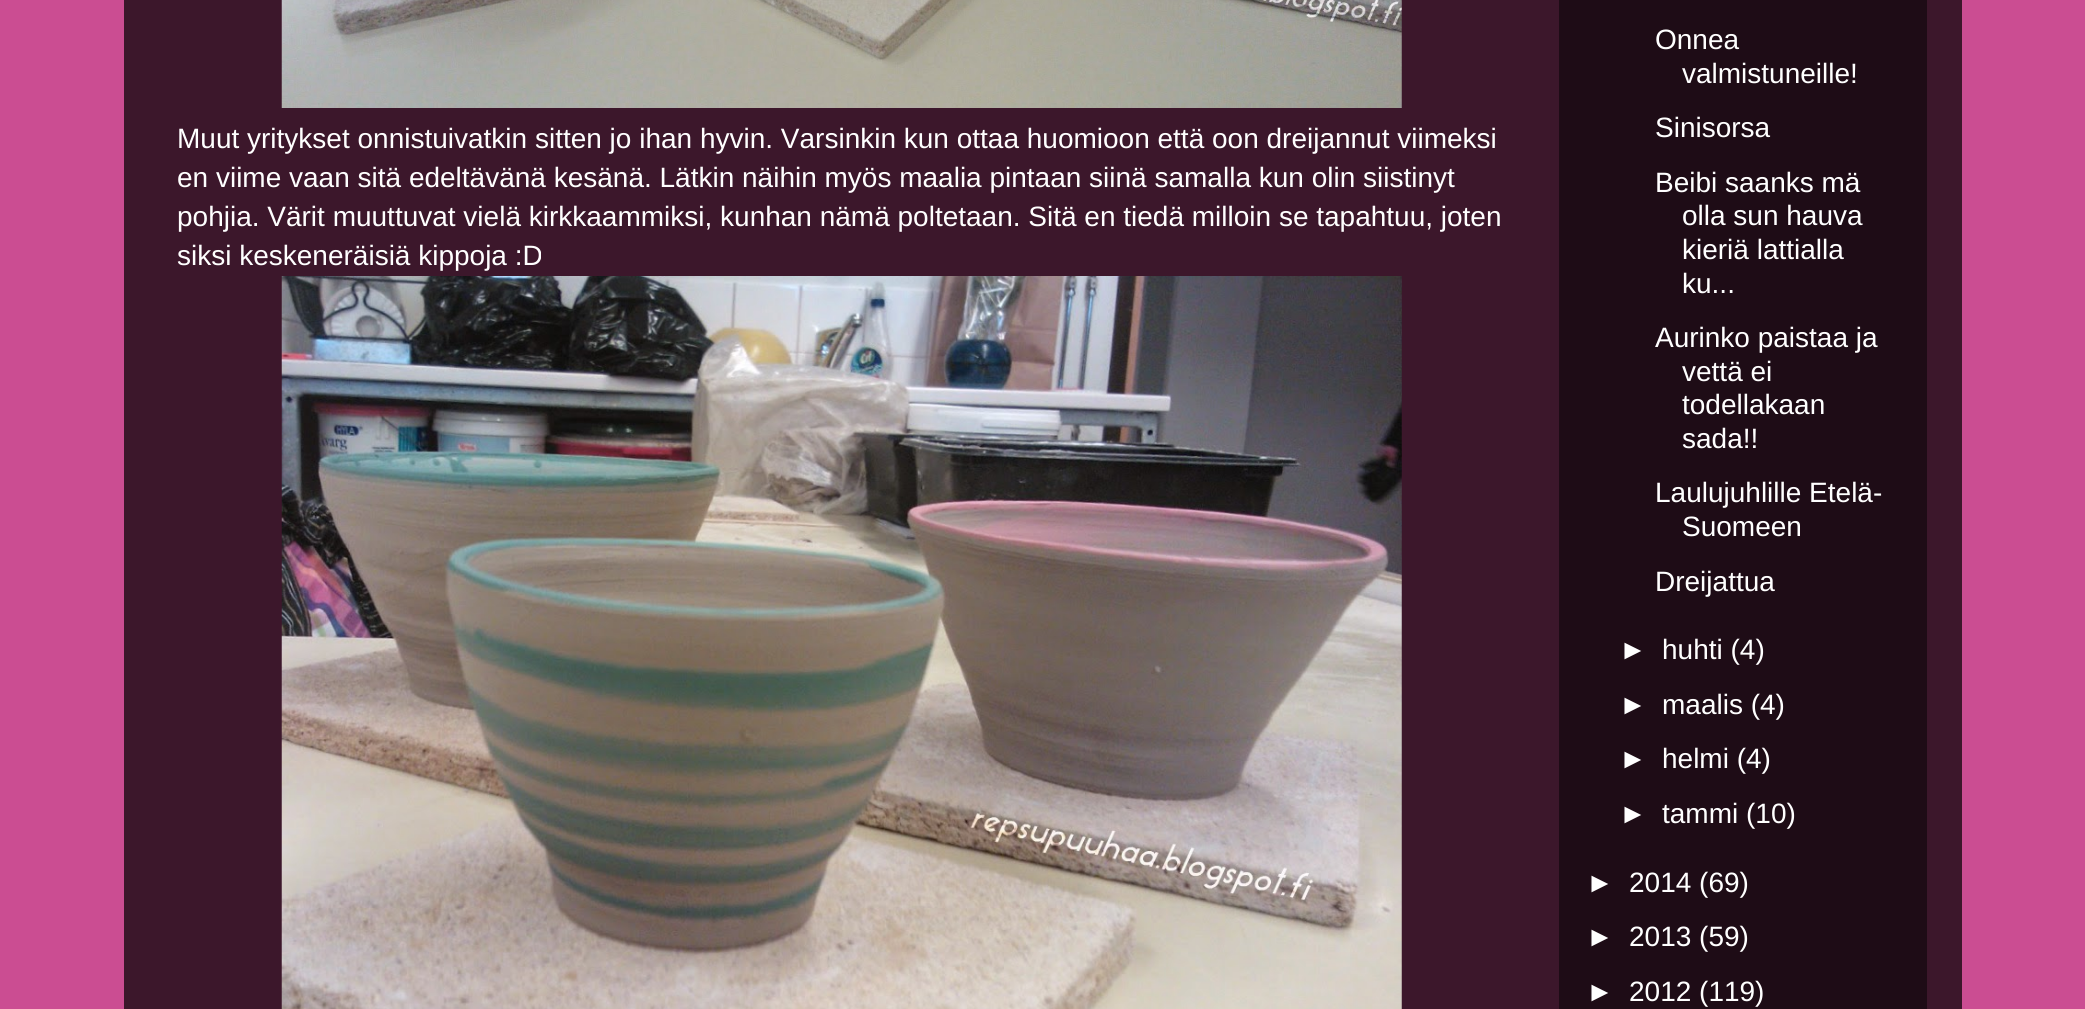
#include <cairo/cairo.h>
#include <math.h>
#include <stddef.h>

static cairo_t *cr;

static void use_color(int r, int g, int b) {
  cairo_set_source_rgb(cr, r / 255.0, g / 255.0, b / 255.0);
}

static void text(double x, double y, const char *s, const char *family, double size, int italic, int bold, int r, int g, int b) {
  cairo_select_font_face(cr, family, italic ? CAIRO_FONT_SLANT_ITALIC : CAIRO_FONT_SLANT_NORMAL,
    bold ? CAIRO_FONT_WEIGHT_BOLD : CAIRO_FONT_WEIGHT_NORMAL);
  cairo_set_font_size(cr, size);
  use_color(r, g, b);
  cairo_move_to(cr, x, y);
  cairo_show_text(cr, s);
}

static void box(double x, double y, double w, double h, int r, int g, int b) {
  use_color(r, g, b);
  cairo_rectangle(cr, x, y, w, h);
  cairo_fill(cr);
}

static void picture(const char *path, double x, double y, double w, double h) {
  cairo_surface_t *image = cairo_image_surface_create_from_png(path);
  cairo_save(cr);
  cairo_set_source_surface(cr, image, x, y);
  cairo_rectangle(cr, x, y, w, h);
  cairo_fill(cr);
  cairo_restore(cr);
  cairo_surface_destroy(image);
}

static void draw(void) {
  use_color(203, 77, 146);
  cairo_paint(cr);
  box(124, 0, 1838, 1009, 60, 23, 43);
  box(1559, 0, 368, 1009, 30, 12, 22);
  picture("img_01.png", 281, 0, 1121, 108);
  picture("img_02.png", 281, 276, 1121, 733);
  text(177, 148, "Muut yritykset onnistuivatkin sitten jo ihan hyvin. Varsinkin kun ottaa huomioon että oon dreijannut viimeksi", "Liberation Sans", 28, 0, 0, 255, 255, 255);
  text(177, 187, "en viime vaan sitä edeltävänä kesänä. Lätkin näihin myös maalia pintaan siinä samalla kun olin siistinyt", "Liberation Sans", 28, 0, 0, 255, 255, 255);
  text(177, 226, "pohjia. Värit muuttuvat vielä kirkkaammiksi, kunhan nämä poltetaan. Sitä en tiedä milloin se tapahtuu, joten", "Liberation Sans", 28, 0, 0, 255, 255, 255);
  text(177, 265, "siksi keskeneräisiä kippoja :D", "Liberation Sans", 28, 0, 0, 255, 255, 255);
  text(1655, 49, "Onnea", "Liberation Sans", 28, 0, 0, 255, 255, 255);
  text(1682, 83, "valmistuneille!", "Liberation Sans", 28, 0, 0, 255, 255, 255);
  text(1655, 137, "Sinisorsa", "Liberation Sans", 28, 0, 0, 255, 255, 255);
  text(1655, 192, "Beibi saanks mä", "Liberation Sans", 28, 0, 0, 255, 255, 255);
  text(1682, 225, "olla sun hauva", "Liberation Sans", 28, 0, 0, 255, 255, 255);
  text(1682, 259, "kieriä lattialla", "Liberation Sans", 28, 0, 0, 255, 255, 255);
  text(1682, 293, "ku...", "Liberation Sans", 28, 0, 0, 255, 255, 255);
  text(1655, 347, "Aurinko paistaa ja", "Liberation Sans", 28, 0, 0, 255, 255, 255);
  text(1682, 381, "vettä ei", "Liberation Sans", 28, 0, 0, 255, 255, 255);
  text(1682, 414, "todellakaan", "Liberation Sans", 28, 0, 0, 255, 255, 255);
  text(1682, 448, "sada!!", "Liberation Sans", 28, 0, 0, 255, 255, 255);
  text(1655, 502, "Laulujuhlille Etelä-", "Liberation Sans", 28, 0, 0, 255, 255, 255);
  text(1682, 536, "Suomeen", "Liberation Sans", 28, 0, 0, 255, 255, 255);
  text(1655, 591, "Dreijattua", "Liberation Sans", 28, 0, 0, 255, 255, 255);
  text(1619, 659, "►", "Liberation Sans", 28, 0, 0, 255, 255, 255);
  text(1662, 659, "huhti (4)", "Liberation Sans", 28, 0, 0, 255, 255, 255);
  text(1619, 714, "►", "Liberation Sans", 28, 0, 0, 255, 255, 255);
  text(1662, 714, "maalis (4)", "Liberation Sans", 28, 0, 0, 255, 255, 255);
  text(1619, 768, "►", "Liberation Sans", 28, 0, 0, 255, 255, 255);
  text(1662, 768, "helmi (4)", "Liberation Sans", 28, 0, 0, 255, 255, 255);
  text(1619, 823, "►", "Liberation Sans", 28, 0, 0, 255, 255, 255);
  text(1662, 823, "tammi (10)", "Liberation Sans", 28, 0, 0, 255, 255, 255);
  text(1586, 892, "►", "Liberation Sans", 28, 0, 0, 255, 255, 255);
  text(1629, 892, "2014 (69)", "Liberation Sans", 28, 0, 0, 255, 255, 255);
  text(1586, 946, "►", "Liberation Sans", 28, 0, 0, 255, 255, 255);
  text(1629, 946, "2013 (59)", "Liberation Sans", 28, 0, 0, 255, 255, 255);
  text(1586, 1001, "►", "Liberation Sans", 28, 0, 0, 255, 255, 255);
  text(1629, 1001, "2012 (119)", "Liberation Sans", 28, 0, 0, 255, 255, 255);
}

int main(void) {
  cairo_surface_t *surface = cairo_image_surface_create(CAIRO_FORMAT_RGB24, 2085, 1009);
  cr = cairo_create(surface);
  cairo_font_options_t *options = cairo_font_options_create();
  cairo_font_options_set_hint_metrics(options, CAIRO_HINT_METRICS_OFF);
  cairo_font_options_set_hint_style(options, CAIRO_HINT_STYLE_NONE);
  cairo_set_font_options(cr, options);
  cairo_set_miter_limit(cr, 4);
  draw();
  cairo_surface_write_to_png(surface, "out.png");
  cairo_font_options_destroy(options);
  cairo_destroy(cr);
  cairo_surface_destroy(surface);
  return 0;
}
